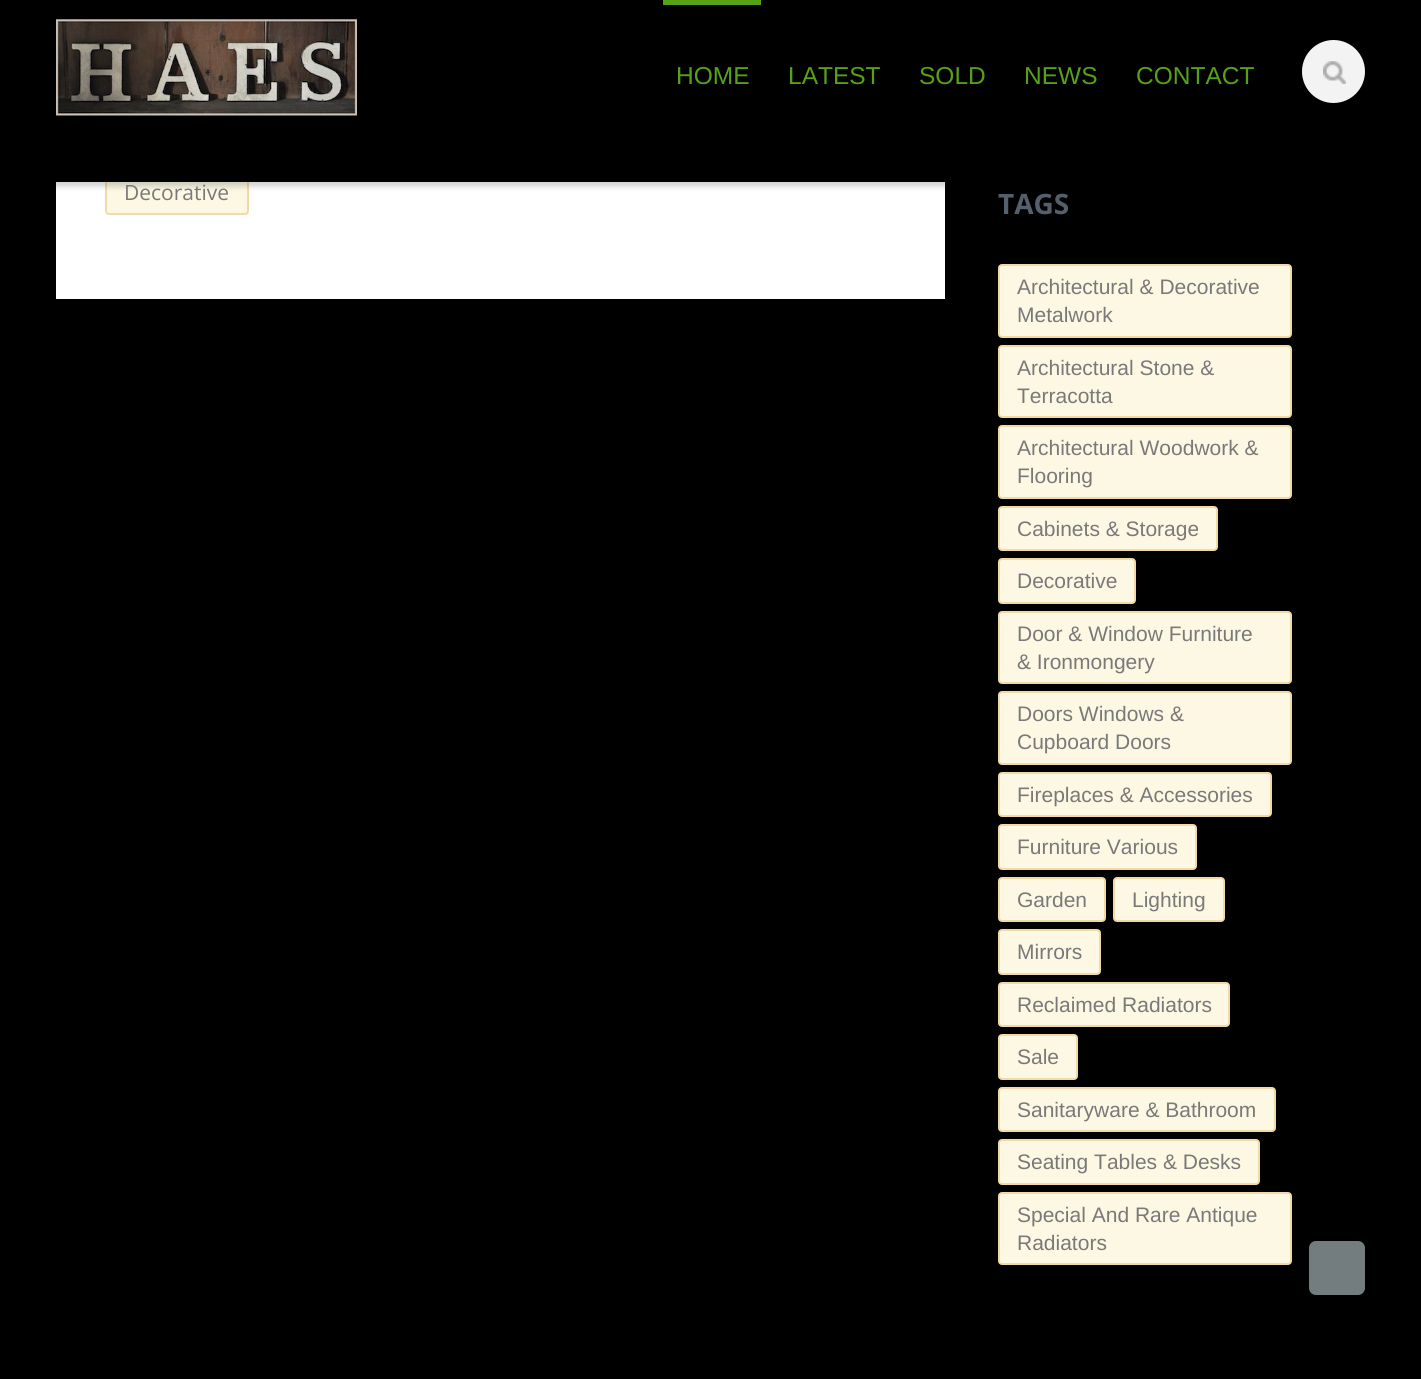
#include <cairo/cairo.h>
#include <math.h>
#include <stddef.h>

static cairo_t *cr;

static void use_color(int r, int g, int b) {
  cairo_set_source_rgb(cr, r / 255.0, g / 255.0, b / 255.0);
}

static void text(double x, double y, const char *s, const char *family, double size, int italic, int bold, int r, int g, int b) {
  cairo_select_font_face(cr, family, italic ? CAIRO_FONT_SLANT_ITALIC : CAIRO_FONT_SLANT_NORMAL,
    bold ? CAIRO_FONT_WEIGHT_BOLD : CAIRO_FONT_WEIGHT_NORMAL);
  cairo_set_font_size(cr, size);
  use_color(r, g, b);
  cairo_move_to(cr, x, y);
  cairo_show_text(cr, s);
}

static void box(double x, double y, double w, double h, int r, int g, int b) {
  use_color(r, g, b);
  cairo_rectangle(cr, x, y, w, h);
  cairo_fill(cr);
}

static void round_rect(double x, double y, double w, double h, double r) {
  cairo_new_sub_path(cr);
  cairo_arc(cr, x + w - r, y + h - r, r, 0, M_PI / 2);
  cairo_arc(cr, x + r, y + h - r, r, M_PI / 2, M_PI);
  cairo_arc(cr, x + r, y + r, r, M_PI, 1.5 * M_PI);
  cairo_arc(cr, x + w - r, y + r, r, 1.5 * M_PI, 2 * M_PI);
  cairo_close_path(cr);
}

static void shadow(double x, double y, double w, double h, double r, double blur, double alpha) {
  cairo_push_group_with_content(cr, CAIRO_CONTENT_ALPHA);
  cairo_set_operator(cr, CAIRO_OPERATOR_SOURCE);
  for (int i = 15; i >= -15 && fmin(w, h) + blur * i / 3 > 0; i -= 2) {
    double e = blur * i / 6;
    cairo_set_source_rgba(cr, 0, 0, 0, alpha * erfc((i - 1) / 8.5) / 2);
    round_rect(x - e, y - e, w + 2 * e, h + 2 * e, fmax(0, fmin(r + e + blur * .6, fmin(w, h) / 2 + e)));
    cairo_fill(cr);
  }
  cairo_pattern_t *soft = cairo_pop_group(cr);
  cairo_mask(cr, soft);
  cairo_pattern_destroy(soft);
}

static void picture(const char *path, double x, double y, double w, double h) {
  cairo_surface_t *image = cairo_image_surface_create_from_png(path);
  cairo_save(cr);
  cairo_set_source_surface(cr, image, x, y);
  cairo_rectangle(cr, x, y, w, h);
  cairo_fill(cr);
  cairo_restore(cr);
  cairo_surface_destroy(image);
}

static void draw(void) {
  use_color(0, 0, 0);
  cairo_paint(cr);
  box(56, 182, 889, 117, 255, 255, 255);
  use_color(252, 248, 227);
  round_rect(106, 171, 142, 43, 3);
  cairo_fill_preserve(cr);
  use_color(243, 217, 166);
  cairo_stroke(cr);
  use_color(0, 0, 0);
  shadow(0, 5, 1421, 182, 0, 2.5, 0.17);
  box(105, 170, 144, 12, 0, 0, 0);
  picture("img_01.png", 56, 19, 301, 97);
  box(663, 0, 98, 5, 87, 161, 23);
  use_color(243, 243, 243);
  cairo_arc(cr, 1333.5, 71.5, 31.5, 0, 2 * M_PI);
  cairo_fill(cr);
  picture("img_02.png", 1323, 61, 23, 23);
  use_color(252, 248, 227);
  round_rect(999, 265, 292, 72, 3);
  cairo_fill_preserve(cr);
  use_color(243, 217, 166);
  cairo_stroke(cr);
  use_color(252, 248, 227);
  round_rect(999, 346, 292, 71, 3);
  cairo_fill_preserve(cr);
  use_color(243, 217, 166);
  cairo_stroke(cr);
  use_color(252, 248, 227);
  round_rect(999, 426, 292, 72, 3);
  cairo_fill_preserve(cr);
  use_color(243, 217, 166);
  cairo_stroke(cr);
  use_color(252, 248, 227);
  round_rect(999, 507, 218, 43, 3);
  cairo_fill_preserve(cr);
  use_color(243, 217, 166);
  cairo_stroke(cr);
  use_color(252, 248, 227);
  round_rect(999, 559, 136, 44, 3);
  cairo_fill_preserve(cr);
  use_color(243, 217, 166);
  cairo_stroke(cr);
  use_color(252, 248, 227);
  round_rect(999, 612, 292, 71, 3);
  cairo_fill_preserve(cr);
  use_color(243, 217, 166);
  cairo_stroke(cr);
  use_color(252, 248, 227);
  round_rect(999, 692, 292, 72, 3);
  cairo_fill_preserve(cr);
  use_color(243, 217, 166);
  cairo_stroke(cr);
  use_color(252, 248, 227);
  round_rect(999, 773, 272, 43, 3);
  cairo_fill_preserve(cr);
  use_color(243, 217, 166);
  cairo_stroke(cr);
  use_color(252, 248, 227);
  round_rect(999, 825, 197, 44, 3);
  cairo_fill_preserve(cr);
  use_color(243, 217, 166);
  cairo_stroke(cr);
  use_color(252, 248, 227);
  round_rect(999, 878, 106, 43, 3);
  cairo_fill_preserve(cr);
  use_color(243, 217, 166);
  cairo_stroke(cr);
  use_color(252, 248, 227);
  round_rect(1114, 878, 110, 43, 3);
  cairo_fill_preserve(cr);
  use_color(243, 217, 166);
  cairo_stroke(cr);
  use_color(252, 248, 227);
  round_rect(999, 930, 101, 44, 3);
  cairo_fill_preserve(cr);
  use_color(243, 217, 166);
  cairo_stroke(cr);
  use_color(252, 248, 227);
  round_rect(999, 983, 230, 43, 3);
  cairo_fill_preserve(cr);
  use_color(243, 217, 166);
  cairo_stroke(cr);
  use_color(252, 248, 227);
  round_rect(999, 1035, 78, 44, 3);
  cairo_fill_preserve(cr);
  use_color(243, 217, 166);
  cairo_stroke(cr);
  use_color(252, 248, 227);
  round_rect(999, 1088, 276, 43, 3);
  cairo_fill_preserve(cr);
  use_color(243, 217, 166);
  cairo_stroke(cr);
  use_color(252, 248, 227);
  round_rect(999, 1140, 260, 44, 3);
  cairo_fill_preserve(cr);
  use_color(243, 217, 166);
  cairo_stroke(cr);
  use_color(252, 248, 227);
  round_rect(999, 1193, 292, 71, 3);
  cairo_fill_preserve(cr);
  use_color(243, 217, 166);
  cairo_stroke(cr);
  use_color(115, 125, 128);
  round_rect(1309, 1241, 56, 54, 7);
  cairo_fill(cr);
  text(676, 84, "HOME", "Liberation Sans", 24.5, 0, 0, 87, 161, 23);
  text(788, 84, "LATEST", "Liberation Sans", 24.5, 0, 0, 87, 161, 23);
  text(919, 84, "SOLD", "Liberation Sans", 24.5, 0, 0, 87, 161, 23);
  text(1024, 84, "NEWS", "Liberation Sans", 24.5, 0, 0, 87, 161, 23);
  text(1136, 84, "CONTACT", "Liberation Sans", 24.5, 0, 0, 87, 161, 23);
  text(124, 200, "Decorative", "Open Sans", 21, 0, 0, 121, 121, 121);
  text(998, 214, "TAGS", "Open Sans", 28, 0, 1, 84, 96, 107);
  text(1017, 294, "Architectural & Decorative", "Liberation Sans", 21, 0, 0, 121, 121, 121);
  text(1017, 322, "Metalwork", "Liberation Sans", 21, 0, 0, 121, 121, 121);
  text(1017, 375, "Architectural Stone &", "Liberation Sans", 21, 0, 0, 121, 121, 121);
  text(1017, 403, "Terracotta", "Liberation Sans", 21, 0, 0, 121, 121, 121);
  text(1017, 455, "Architectural Woodwork &", "Liberation Sans", 21, 0, 0, 121, 121, 121);
  text(1017, 483, "Flooring", "Liberation Sans", 21, 0, 0, 121, 121, 121);
  text(1017, 536, "Cabinets & Storage", "Liberation Sans", 21, 0, 0, 121, 121, 121);
  text(1017, 588, "Decorative", "Liberation Sans", 21, 0, 0, 121, 121, 121);
  text(1017, 641, "Door & Window Furniture", "Liberation Sans", 21, 0, 0, 121, 121, 121);
  text(1017, 669, "& Ironmongery", "Liberation Sans", 21, 0, 0, 121, 121, 121);
  text(1017, 721, "Doors Windows &", "Liberation Sans", 21, 0, 0, 121, 121, 121);
  text(1017, 749, "Cupboard Doors", "Liberation Sans", 21, 0, 0, 121, 121, 121);
  text(1017, 802, "Fireplaces & Accessories", "Liberation Sans", 21, 0, 0, 121, 121, 121);
  text(1017, 854, "Furniture Various", "Liberation Sans", 21, 0, 0, 121, 121, 121);
  text(1017, 907, "Garden", "Liberation Sans", 21, 0, 0, 121, 121, 121);
  text(1132, 907, "Lighting", "Liberation Sans", 21, 0, 0, 121, 121, 121);
  text(1017, 959, "Mirrors", "Liberation Sans", 21, 0, 0, 121, 121, 121);
  text(1017, 1012, "Reclaimed Radiators", "Liberation Sans", 21, 0, 0, 121, 121, 121);
  text(1017, 1064, "Sale", "Liberation Sans", 21, 0, 0, 121, 121, 121);
  text(1017, 1117, "Sanitaryware & Bathroom", "Liberation Sans", 21, 0, 0, 121, 121, 121);
  text(1017, 1169, "Seating Tables & Desks", "Liberation Sans", 21, 0, 0, 121, 121, 121);
  text(1017, 1222, "Special And Rare Antique", "Liberation Sans", 21, 0, 0, 121, 121, 121);
  text(1017, 1250, "Radiators", "Liberation Sans", 21, 0, 0, 121, 121, 121);
}

int main(void) {
  cairo_surface_t *surface = cairo_image_surface_create(CAIRO_FORMAT_RGB24, 1421, 1379);
  cr = cairo_create(surface);
  cairo_font_options_t *options = cairo_font_options_create();
  cairo_font_options_set_hint_metrics(options, CAIRO_HINT_METRICS_OFF);
  cairo_font_options_set_hint_style(options, CAIRO_HINT_STYLE_NONE);
  cairo_set_font_options(cr, options);
  cairo_set_miter_limit(cr, 4);
  draw();
  cairo_surface_write_to_png(surface, "out.png");
  cairo_font_options_destroy(options);
  cairo_destroy(cr);
  cairo_surface_destroy(surface);
  return 0;
}
